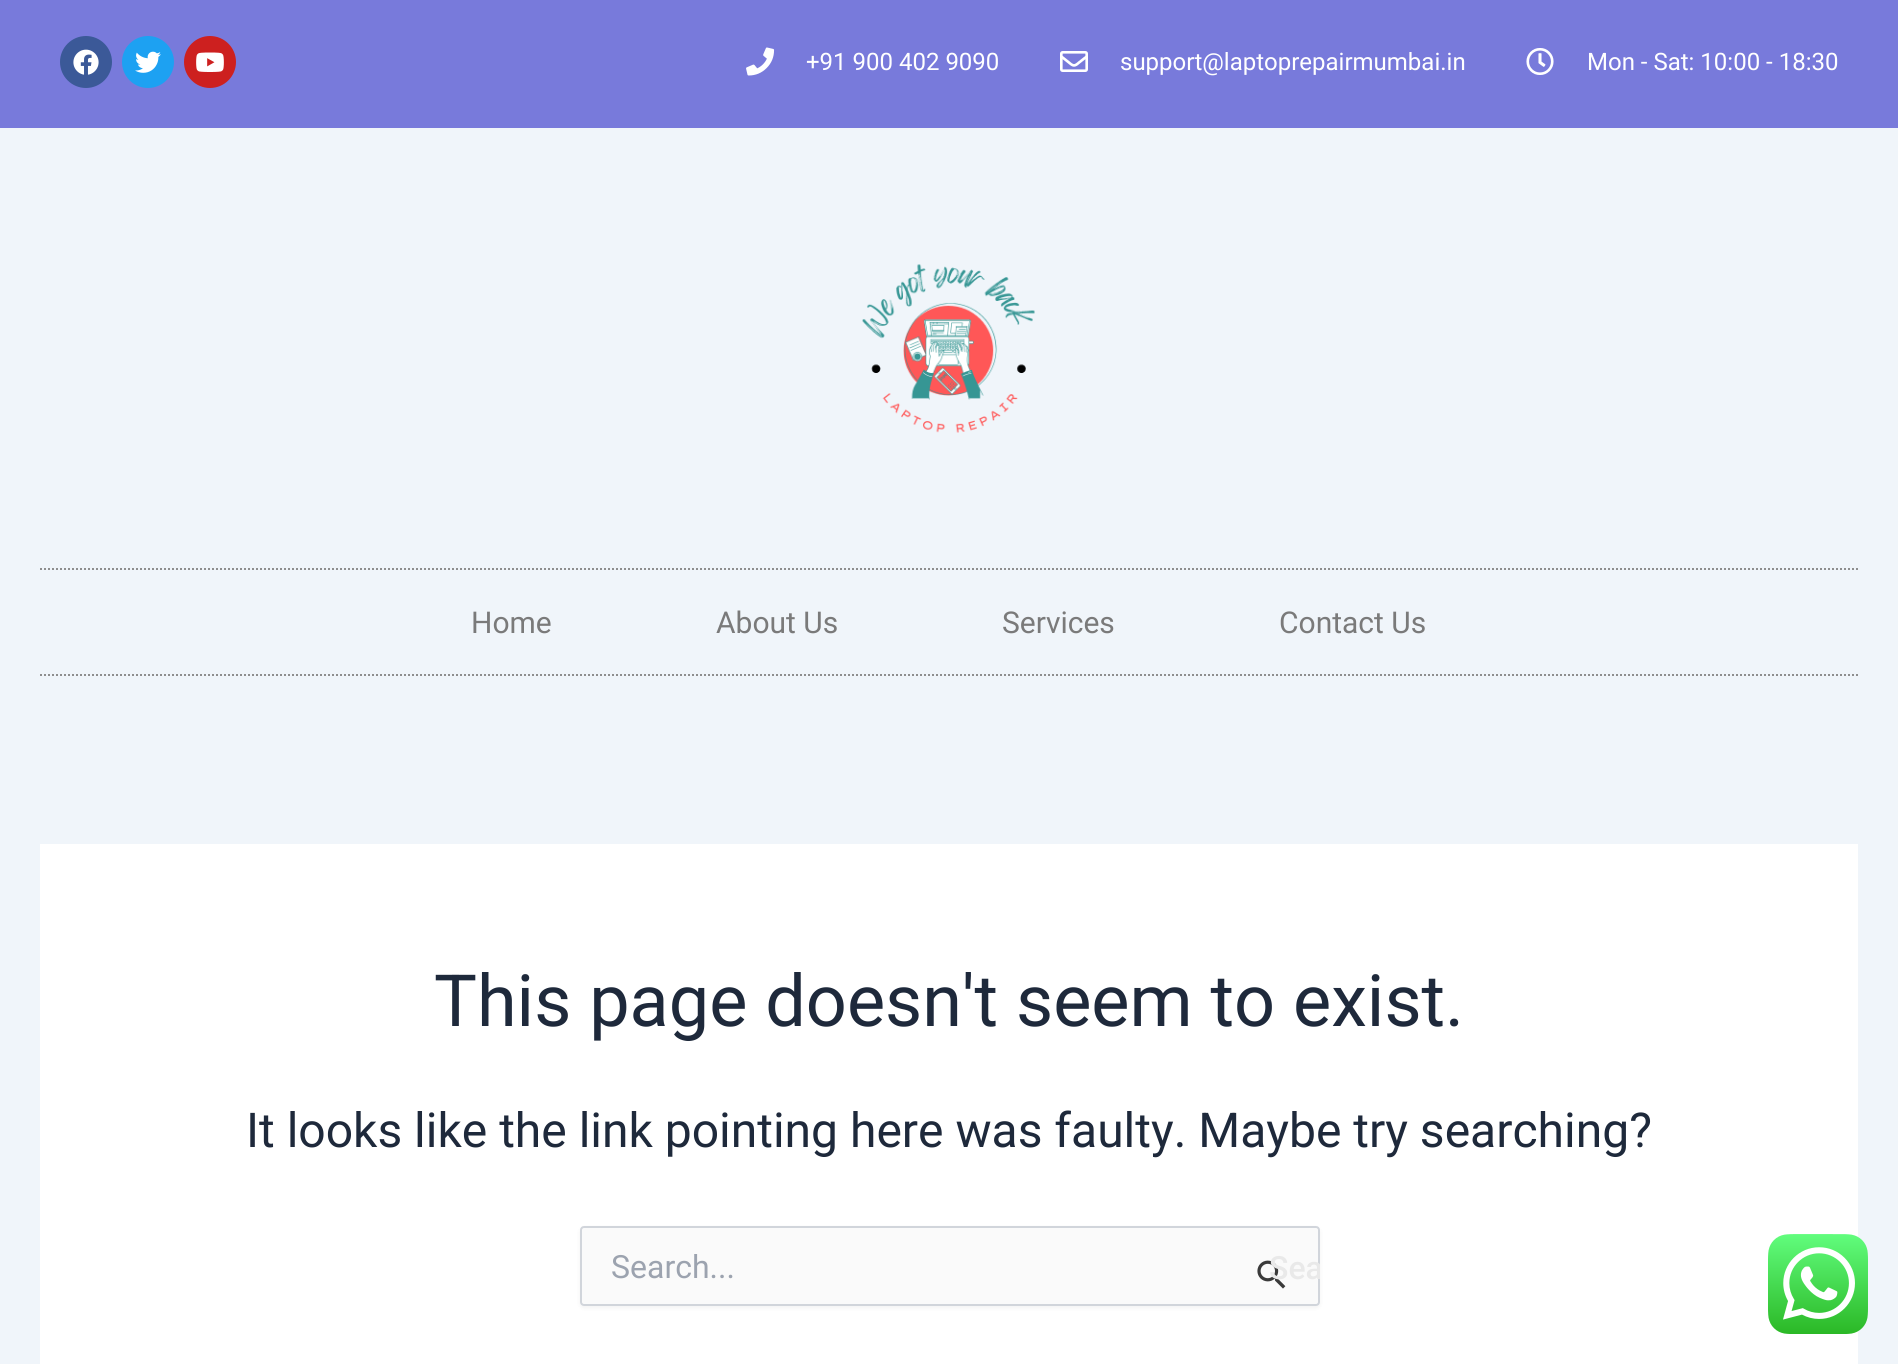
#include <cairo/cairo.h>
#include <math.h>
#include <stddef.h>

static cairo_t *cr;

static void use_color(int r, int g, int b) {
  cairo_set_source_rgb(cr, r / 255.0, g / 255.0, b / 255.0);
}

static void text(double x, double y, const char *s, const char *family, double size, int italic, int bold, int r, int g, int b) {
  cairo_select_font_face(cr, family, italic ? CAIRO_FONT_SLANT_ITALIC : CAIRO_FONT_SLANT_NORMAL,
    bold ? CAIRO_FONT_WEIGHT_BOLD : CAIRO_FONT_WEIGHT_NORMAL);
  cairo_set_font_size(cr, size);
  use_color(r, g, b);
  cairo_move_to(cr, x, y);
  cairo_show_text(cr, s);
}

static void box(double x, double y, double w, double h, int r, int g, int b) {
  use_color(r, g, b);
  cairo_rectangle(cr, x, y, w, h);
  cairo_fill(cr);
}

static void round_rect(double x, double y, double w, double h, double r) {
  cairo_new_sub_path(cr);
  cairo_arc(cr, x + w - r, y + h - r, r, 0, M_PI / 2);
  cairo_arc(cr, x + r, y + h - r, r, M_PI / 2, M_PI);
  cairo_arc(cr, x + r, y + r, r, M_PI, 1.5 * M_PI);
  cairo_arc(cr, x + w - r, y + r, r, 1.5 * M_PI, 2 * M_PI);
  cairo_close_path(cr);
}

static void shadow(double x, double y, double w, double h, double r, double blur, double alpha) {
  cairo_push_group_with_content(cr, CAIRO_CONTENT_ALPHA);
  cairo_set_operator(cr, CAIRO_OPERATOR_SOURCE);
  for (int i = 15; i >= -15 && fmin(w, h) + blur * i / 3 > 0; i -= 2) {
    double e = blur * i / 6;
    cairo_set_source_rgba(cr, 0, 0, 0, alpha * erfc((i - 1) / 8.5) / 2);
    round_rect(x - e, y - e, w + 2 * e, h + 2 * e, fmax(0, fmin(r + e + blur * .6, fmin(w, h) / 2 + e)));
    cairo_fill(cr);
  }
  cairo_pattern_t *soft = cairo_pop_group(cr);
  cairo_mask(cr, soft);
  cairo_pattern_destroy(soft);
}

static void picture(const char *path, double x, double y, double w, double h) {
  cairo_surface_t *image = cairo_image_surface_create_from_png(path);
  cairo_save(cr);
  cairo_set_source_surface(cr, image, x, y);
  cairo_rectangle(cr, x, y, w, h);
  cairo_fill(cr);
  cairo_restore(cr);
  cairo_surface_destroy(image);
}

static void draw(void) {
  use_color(240, 245, 250);
  cairo_paint(cr);
  box(0, 0, 1898, 128, 120, 122, 219);
  use_color(59, 89, 152);
  cairo_arc(cr, 86, 62, 26, 0, 2 * M_PI);
  cairo_fill(cr);
  picture("img_01.png", 73, 49, 26, 26);
  use_color(29, 161, 242);
  cairo_arc(cr, 148, 62, 26, 0, 2 * M_PI);
  cairo_fill(cr);
  picture("img_02.png", 135, 51, 26, 22);
  use_color(205, 32, 31);
  cairo_arc(cr, 210, 62, 26, 0, 2 * M_PI);
  cairo_fill(cr);
  picture("img_03.png", 196, 52, 28, 20);
  picture("img_04.png", 746, 47, 29, 29);
  picture("img_05.png", 1060, 51, 28, 21);
  picture("img_06.png", 1526, 48, 28, 27);
  picture("img_07.png", 862, 264, 173, 169);
  cairo_new_path(cr);
  cairo_move_to(cr, 40, 569);
  cairo_line_to(cr, 1858, 569);
  use_color(142, 142, 142);
  cairo_set_dash(cr, (double[]){2, 2}, 2, 0);
  cairo_stroke(cr);
  cairo_new_path(cr);
  cairo_move_to(cr, 40, 675);
  cairo_line_to(cr, 1858, 675);
  cairo_stroke(cr);
  box(40, 844, 1818, 520, 255, 255, 255);
  use_color(0, 0, 0);
  shadow(580, 1228, 740, 80, 4, 2, 0.05);
  use_color(250, 250, 250);
  round_rect(581, 1227, 738, 78, 3);
  cairo_fill_preserve(cr);
  use_color(209, 213, 219);
  cairo_set_dash(cr, NULL, 0, 0);
  cairo_stroke(cr);
  picture("img_08.png", 1257, 1260, 29, 29);
  picture("img_09.png", 1768, 1234, 100, 100);
  text(806, 70, "+91 900 402 9090", "Roboto", 24, 0, 0, 255, 255, 255);
  text(1120, 70, "support@laptoprepairmumbai.in", "Roboto", 24, 0, 0, 255, 255, 255);
  text(1587, 70, "Mon - Sat: 10:00 - 18:30", "Roboto", 24, 0, 0, 255, 255, 255);
  text(471, 633, "Home", "Roboto", 30, 0, 0, 122, 122, 122);
  text(716, 633, "About Us", "Roboto", 30, 0, 0, 122, 122, 122);
  text(1002, 633, "Services", "Roboto", 30, 0, 0, 122, 122, 122);
  text(1279, 633, "Contact Us", "Roboto", 30, 0, 0, 122, 122, 122);
  text(434, 1026, "This page doesn't seem to exist.", "Roboto", 72, 0, 0, 30, 41, 59);
  text(246, 1147, "It looks like the link pointing here was faulty. Maybe try searching?", "Roboto", 48, 0, 0, 30, 41, 59);
  text(611, 1278, "Search...", "Roboto", 32, 0, 0, 156, 163, 175);
  cairo_save(cr);
  round_rect(1230, 1226, 90, 84, 4);
  cairo_clip(cr);
  text(1269, 1279, "Sea", "Roboto Medium", 32, 0, 0, 233, 233, 233);
  cairo_restore(cr);
}

int main(void) {
  cairo_surface_t *surface = cairo_image_surface_create(CAIRO_FORMAT_RGB24, 1898, 1364);
  cr = cairo_create(surface);
  cairo_font_options_t *options = cairo_font_options_create();
  cairo_font_options_set_hint_metrics(options, CAIRO_HINT_METRICS_OFF);
  cairo_font_options_set_hint_style(options, CAIRO_HINT_STYLE_NONE);
  cairo_set_font_options(cr, options);
  cairo_set_miter_limit(cr, 4);
  draw();
  cairo_surface_write_to_png(surface, "out.png");
  cairo_font_options_destroy(options);
  cairo_destroy(cr);
  cairo_surface_destroy(surface);
  return 0;
}
